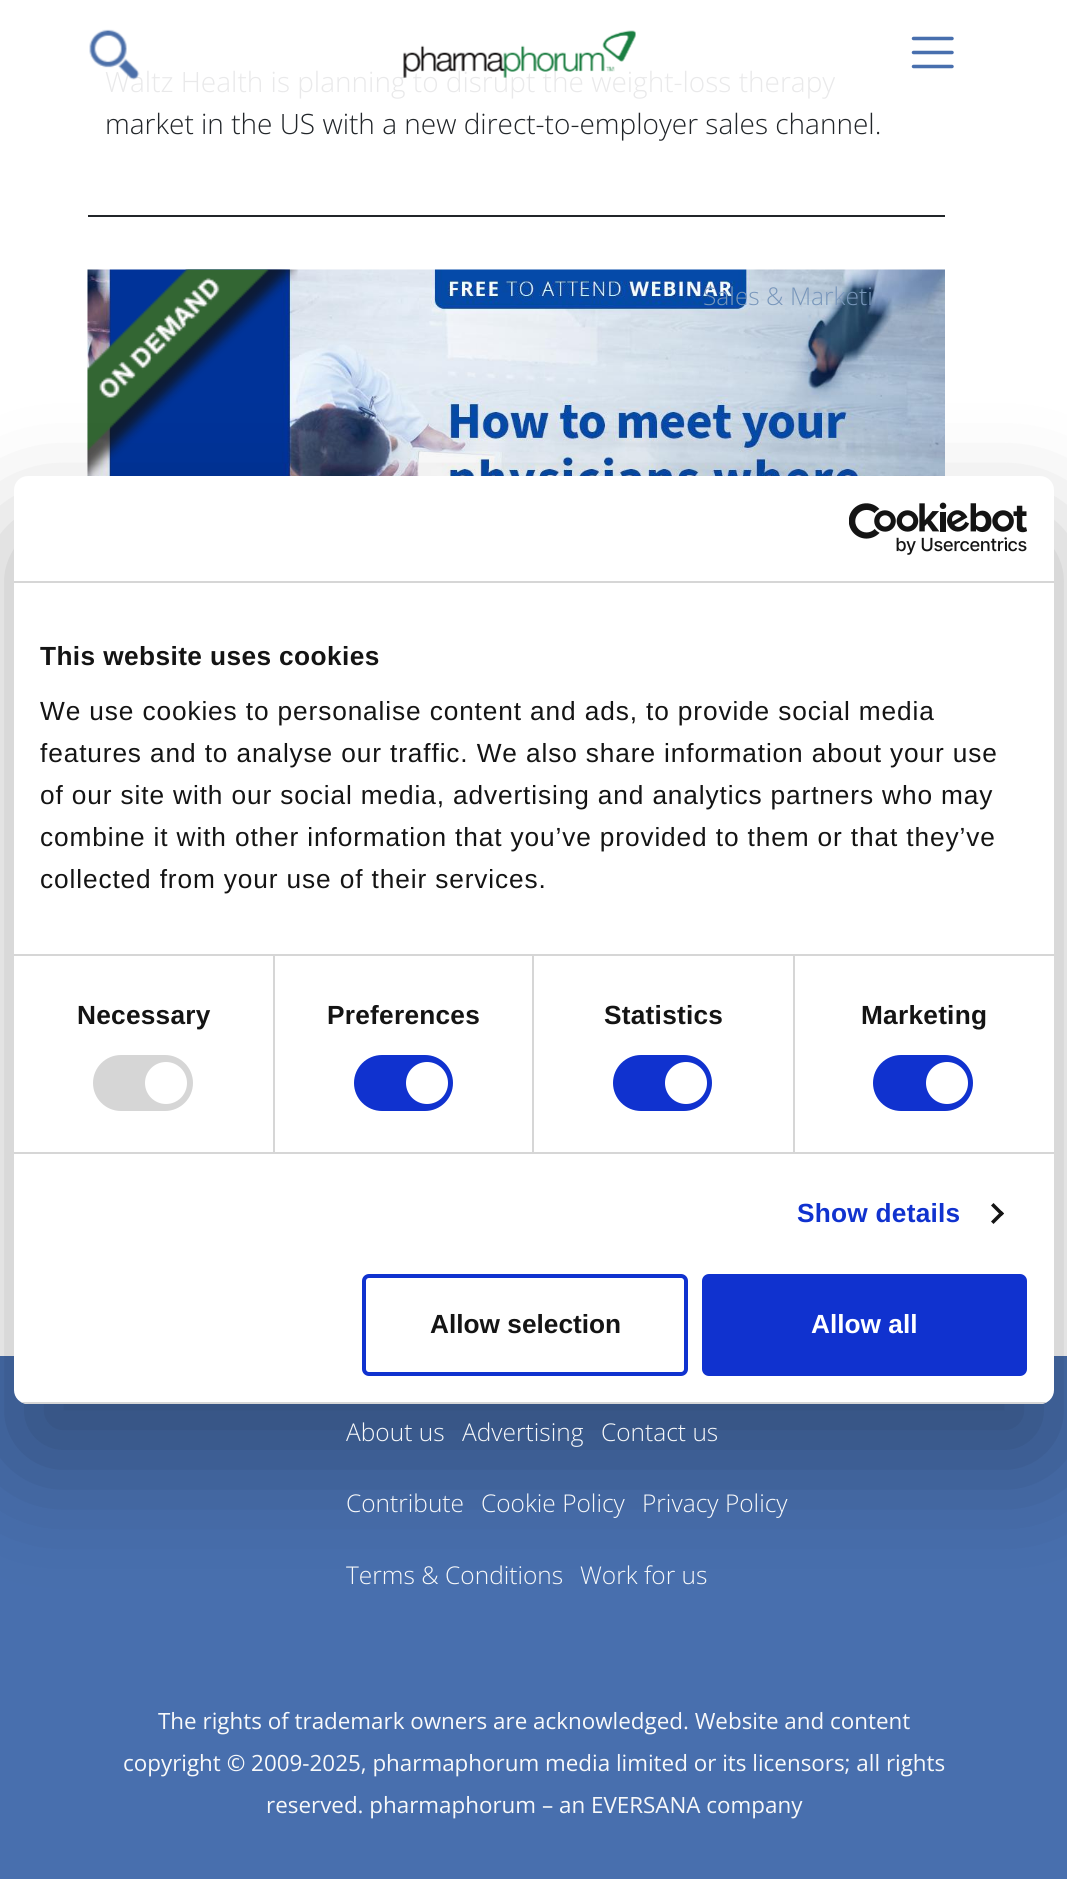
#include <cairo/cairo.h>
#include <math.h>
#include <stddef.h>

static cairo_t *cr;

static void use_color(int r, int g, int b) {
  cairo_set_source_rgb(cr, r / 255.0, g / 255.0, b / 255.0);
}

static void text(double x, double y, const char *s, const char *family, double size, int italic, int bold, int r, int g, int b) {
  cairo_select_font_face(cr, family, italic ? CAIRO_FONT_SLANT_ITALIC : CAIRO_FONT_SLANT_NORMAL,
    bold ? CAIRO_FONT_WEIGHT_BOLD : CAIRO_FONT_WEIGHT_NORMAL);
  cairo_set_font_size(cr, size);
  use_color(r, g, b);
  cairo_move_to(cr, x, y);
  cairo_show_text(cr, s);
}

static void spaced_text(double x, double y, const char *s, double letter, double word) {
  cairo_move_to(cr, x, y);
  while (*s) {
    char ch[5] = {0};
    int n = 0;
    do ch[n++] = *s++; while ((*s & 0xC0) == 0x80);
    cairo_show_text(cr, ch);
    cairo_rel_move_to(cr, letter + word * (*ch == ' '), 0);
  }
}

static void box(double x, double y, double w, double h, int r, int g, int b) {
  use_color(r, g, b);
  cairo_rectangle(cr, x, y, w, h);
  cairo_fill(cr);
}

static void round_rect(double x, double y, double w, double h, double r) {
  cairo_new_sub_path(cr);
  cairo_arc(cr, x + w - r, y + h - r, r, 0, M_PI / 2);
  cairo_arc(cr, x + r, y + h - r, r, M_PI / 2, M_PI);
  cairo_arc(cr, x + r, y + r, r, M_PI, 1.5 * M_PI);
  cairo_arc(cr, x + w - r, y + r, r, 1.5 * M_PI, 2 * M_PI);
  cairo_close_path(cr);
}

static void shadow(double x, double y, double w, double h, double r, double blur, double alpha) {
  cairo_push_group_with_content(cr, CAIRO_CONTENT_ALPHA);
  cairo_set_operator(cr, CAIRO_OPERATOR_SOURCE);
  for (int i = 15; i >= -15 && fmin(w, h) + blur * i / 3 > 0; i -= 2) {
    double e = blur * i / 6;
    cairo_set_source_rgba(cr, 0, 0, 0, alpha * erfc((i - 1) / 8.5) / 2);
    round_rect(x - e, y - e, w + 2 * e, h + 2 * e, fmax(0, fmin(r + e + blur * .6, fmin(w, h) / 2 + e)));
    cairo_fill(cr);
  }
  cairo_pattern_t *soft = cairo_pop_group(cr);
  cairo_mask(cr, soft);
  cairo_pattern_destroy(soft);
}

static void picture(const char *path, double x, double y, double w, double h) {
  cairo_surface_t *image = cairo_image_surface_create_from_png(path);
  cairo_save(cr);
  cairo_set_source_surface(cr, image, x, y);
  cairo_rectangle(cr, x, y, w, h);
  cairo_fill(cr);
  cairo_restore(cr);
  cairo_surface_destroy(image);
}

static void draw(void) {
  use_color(255, 255, 255);
  cairo_paint(cr);
  cairo_new_path(cr);
  cairo_move_to(cr, 913.5, 38.5);
  cairo_line_to(cr, 952, 38.5);
  cairo_move_to(cr, 913.5, 52.5);
  cairo_line_to(cr, 952, 52.5);
  cairo_move_to(cr, 913.5, 66.5);
  cairo_line_to(cr, 952, 66.5);
  use_color(72, 111, 174);
  cairo_set_line_width(cr, 3.5);
  cairo_set_line_cap(cr, CAIRO_LINE_CAP_ROUND);
  cairo_stroke(cr);
  box(88, 215, 857, 2, 33, 37, 41);
  picture("img_03.png", 87, 269, 858, 207);
  picture("img_04.png", 87, 269, 211, 207);
  box(0, 1356, 1067, 523, 72, 111, 174);
  use_color(0, 0, 0);
  shadow(14, 532, 1040, 928, 14, 59.5, 0.3);
  use_color(255, 255, 255);
  round_rect(14, 476, 1040, 928, 14);
  cairo_fill(cr);
  box(14, 581, 1040, 2, 214, 214, 214);
  picture("img_05.png", 849, 502, 178, 53);
  box(14, 954, 1040, 2, 214, 214, 214);
  box(14, 1152, 1040, 2, 214, 214, 214);
  box(273, 956, 2, 196, 214, 214, 214);
  round_rect(93, 1055, 100, 56, 28);
  cairo_fill(cr);
  use_color(255, 255, 255);
  cairo_arc(cr, 166, 1083, 21, 0, 2 * M_PI);
  cairo_fill(cr);
  box(532, 956, 2, 196, 214, 214, 214);
  use_color(16, 50, 207);
  round_rect(354, 1055, 99, 56, 28);
  cairo_fill(cr);
  use_color(255, 255, 255);
  cairo_arc(cr, 427, 1083, 21, 0, 2 * M_PI);
  cairo_fill(cr);
  box(793, 956, 2, 196, 214, 214, 214);
  use_color(16, 50, 207);
  round_rect(613, 1055, 99, 56, 28);
  cairo_fill(cr);
  use_color(255, 255, 255);
  cairo_arc(cr, 686, 1083, 21, 0, 2 * M_PI);
  cairo_fill(cr);
  use_color(16, 50, 207);
  round_rect(873, 1055, 100, 56, 28);
  cairo_fill(cr);
  use_color(255, 255, 255);
  cairo_arc(cr, 947, 1083, 21, 0, 2 * M_PI);
  cairo_fill(cr);
  use_color(20, 20, 20);
  cairo_new_path(cr);
  cairo_move_to(cr, 993.5, 1203);
  cairo_line_to(cr, 1004, 1213.5);
  cairo_line_to(cr, 1001.5, 1216);
  cairo_line_to(cr, 991, 1205.5);
  cairo_close_path(cr);
  cairo_fill(cr);
  cairo_new_path(cr);
  cairo_move_to(cr, 1001.5, 1211);
  cairo_line_to(cr, 1004, 1213.5);
  cairo_line_to(cr, 993.5, 1224);
  cairo_line_to(cr, 991, 1221.5);
  cairo_close_path(cr);
  cairo_fill(cr);
  cairo_save(cr);
  round_rect(14, 476, 1040, 928, 14);
  cairo_clip(cr);
  box(14, 1402, 1040, 2, 214, 214, 214);
  cairo_restore(cr);
  round_rect(364, 1276, 322, 98, 5);
  use_color(16, 50, 207);
  cairo_set_line_width(cr, 4);
  cairo_set_line_cap(cr, CAIRO_LINE_CAP_BUTT);
  cairo_stroke(cr);
  round_rect(704, 1276, 321, 98, 5);
  cairo_fill_preserve(cr);
  cairo_stroke(cr);
  text(105, 92, "Waltz Health is planning to disrupt the weight-loss therapy", "Open Sans Light", 28, 0, 0, 233, 233, 234);
  picture("img_02.png", 403, 30, 233, 48);
  picture("img_01.png", 89, 29, 51, 51);
  text(105, 134, "market in the US with a new direct-to-employer sales channel.", "Open Sans Light", 28, 0, 0, 33, 37, 41);
  text(703, 305, "Sales & Marketi", "Open Sans Light", 24.5, 0, 0, 121, 151, 187);
  text(346, 1441, "About us", "Open Sans Light", 24.5, 0, 0, 248, 249, 250);
  text(462, 1441, "Advertising", "Open Sans Light", 24.5, 0, 0, 248, 249, 250);
  text(601, 1441, "Contact us", "Open Sans Light", 24.5, 0, 0, 248, 249, 250);
  text(346, 1512, "Contribute", "Open Sans Light", 24.5, 0, 0, 248, 249, 250);
  text(481, 1512, "Cookie Policy", "Open Sans Light", 24.5, 0, 0, 248, 249, 250);
  text(642, 1512, "Privacy Policy", "Open Sans Light", 24.5, 0, 0, 248, 249, 250);
  text(346, 1584, "Terms & Conditions", "Open Sans Light", 24.5, 0, 0, 248, 249, 250);
  text(580, 1584, "Work for us", "Open Sans Light", 24.5, 0, 0, 248, 249, 250);
  text(158, 1729, "The rights of trademark owners are acknowledged. Website and content", "Open Sans", 22.4, 0, 0, 248, 249, 250);
  text(123, 1771, "copyright © 2009-2025, pharmaphorum media limited or its licensors; all rights", "Open Sans", 22.4, 0, 0, 248, 249, 250);
  text(266, 1813, "reserved. pharmaphorum – an EVERSANA company", "Open Sans", 22.4, 0, 0, 248, 249, 250);
  cairo_select_font_face(cr, "Liberation Sans", CAIRO_FONT_SLANT_NORMAL, CAIRO_FONT_WEIGHT_BOLD);
  cairo_set_font_size(cr, 26.25);
  use_color(20, 20, 20);
  spaced_text(40, 665, "This website uses cookies", 0.4, 0);
  cairo_select_font_face(cr, "Liberation Sans", CAIRO_FONT_SLANT_NORMAL, CAIRO_FONT_WEIGHT_NORMAL);
  spaced_text(40, 720, "We use cookies to personalise content and ads, to provide social media", 0.88, 0);
  spaced_text(40, 762, "features and to analyse our traffic. We also share information about your use", 0.88, 0);
  spaced_text(40, 804, "of our site with our social media, advertising and analytics partners who may", 0.88, 0);
  spaced_text(40, 846, "combine it with other information that you’ve provided to them or that they’ve", 0.88, 0);
  spaced_text(40, 888, "collected from your use of their services.", 0.88, 0);
  cairo_select_font_face(cr, "Liberation Sans", CAIRO_FONT_SLANT_NORMAL, CAIRO_FONT_WEIGHT_BOLD);
  spaced_text(77, 1024, "Necessary", 0.25, 0);
  spaced_text(327, 1024, "Preferences", 0.25, 0);
  spaced_text(604, 1024, "Statistics", 0.25, 0);
  spaced_text(861, 1024, "Marketing", 0.25, 0);
  use_color(16, 50, 207);
  spaced_text(797, 1222, "Show details", 0.25, 0);
  text(430, 1333, "Allow selection", "Liberation Sans", 26.25, 0, 1, 20, 20, 20);
  text(811, 1333, "Allow all", "Liberation Sans", 26.25, 0, 1, 255, 255, 255);
}

int main(void) {
  cairo_surface_t *surface = cairo_image_surface_create(CAIRO_FORMAT_RGB24, 1067, 1879);
  cr = cairo_create(surface);
  cairo_font_options_t *options = cairo_font_options_create();
  cairo_font_options_set_hint_metrics(options, CAIRO_HINT_METRICS_OFF);
  cairo_font_options_set_hint_style(options, CAIRO_HINT_STYLE_NONE);
  cairo_set_font_options(cr, options);
  cairo_set_miter_limit(cr, 4);
  draw();
  cairo_surface_write_to_png(surface, "out.png");
  cairo_font_options_destroy(options);
  cairo_destroy(cr);
  cairo_surface_destroy(surface);
  return 0;
}
